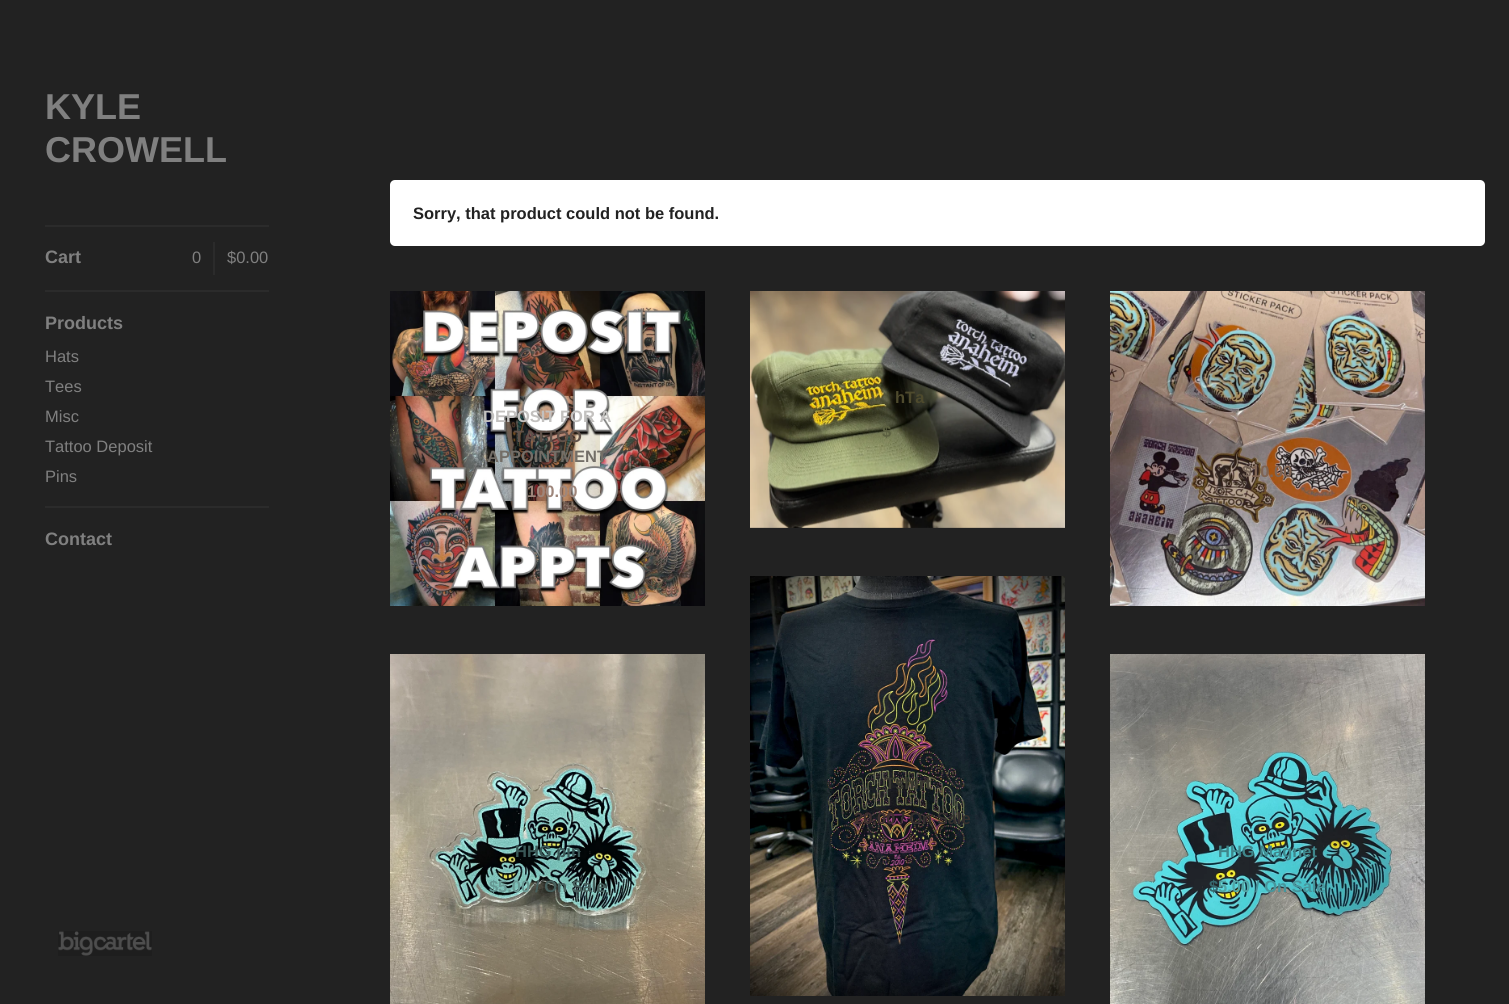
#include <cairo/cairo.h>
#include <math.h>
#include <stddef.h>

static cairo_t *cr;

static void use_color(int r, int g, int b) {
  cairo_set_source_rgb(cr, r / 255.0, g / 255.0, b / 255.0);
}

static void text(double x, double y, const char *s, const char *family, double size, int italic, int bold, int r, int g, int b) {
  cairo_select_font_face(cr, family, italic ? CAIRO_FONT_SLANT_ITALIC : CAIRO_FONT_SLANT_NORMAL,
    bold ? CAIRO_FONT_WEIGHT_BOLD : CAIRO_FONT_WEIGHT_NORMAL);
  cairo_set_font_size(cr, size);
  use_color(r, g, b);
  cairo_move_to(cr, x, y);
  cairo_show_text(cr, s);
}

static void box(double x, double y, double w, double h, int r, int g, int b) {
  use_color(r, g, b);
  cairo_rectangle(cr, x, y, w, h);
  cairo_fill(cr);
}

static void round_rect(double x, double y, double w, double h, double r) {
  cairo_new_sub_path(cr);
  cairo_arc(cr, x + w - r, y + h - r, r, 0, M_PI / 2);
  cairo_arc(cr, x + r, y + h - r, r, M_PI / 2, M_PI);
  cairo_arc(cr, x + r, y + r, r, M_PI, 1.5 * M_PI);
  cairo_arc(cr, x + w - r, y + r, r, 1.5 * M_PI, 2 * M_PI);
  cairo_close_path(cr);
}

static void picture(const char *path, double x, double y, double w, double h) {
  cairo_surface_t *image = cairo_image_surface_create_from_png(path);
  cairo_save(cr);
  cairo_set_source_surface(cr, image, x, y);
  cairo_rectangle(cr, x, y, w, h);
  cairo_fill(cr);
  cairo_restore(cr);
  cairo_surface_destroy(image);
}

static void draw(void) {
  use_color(34, 34, 34);
  cairo_paint(cr);
  box(45, 225, 224, 2, 43, 43, 43);
  box(213, 242, 2, 33, 43, 43, 43);
  box(45, 290, 224, 2, 43, 43, 43);
  box(45, 506, 224, 2, 43, 43, 43);
  picture("img_01.png", 58, 931, 94, 25);
  use_color(255, 255, 255);
  round_rect(390, 180, 1095, 66, 5);
  cairo_fill(cr);
  picture("img_02.png", 390, 291, 315, 315);
  picture("img_03.png", 750, 291, 315, 237);
  picture("img_04.png", 1110, 291, 315, 315);
  picture("img_05.png", 750, 576, 315, 420);
  picture("img_06.png", 390, 654, 315, 350);
  picture("img_07.png", 1110, 654, 315, 350);
  text(45, 119, "KYLE", "Liberation Sans", 36, 0, 1, 128, 128, 128);
  text(45, 162, "CROWELL", "Liberation Sans", 36, 0, 1, 128, 128, 128);
  text(45, 263, "Cart", "Liberation Sans", 18, 0, 1, 128, 128, 128);
  text(192, 263, "0", "Liberation Sans", 16.5, 0, 0, 128, 128, 128);
  text(227, 263, "$0.00", "Liberation Sans", 16.5, 0, 0, 128, 128, 128);
  text(45, 329, "Products", "Liberation Sans", 18, 0, 1, 128, 128, 128);
  text(45, 362, "Hats", "Liberation Sans", 16.5, 0, 0, 128, 128, 128);
  text(45, 392, "Tees", "Liberation Sans", 16.5, 0, 0, 128, 128, 128);
  text(45, 422, "Misc", "Liberation Sans", 16.5, 0, 0, 128, 128, 128);
  text(45, 452, "Tattoo Deposit", "Liberation Sans", 16.5, 0, 0, 128, 128, 128);
  text(45, 482, "Pins", "Liberation Sans", 16.5, 0, 0, 128, 128, 128);
  text(45, 545, "Contact", "Liberation Sans", 18, 0, 1, 128, 128, 128);
  text(413, 219, "Sorry, that product could not be found.", "Liberation Sans", 16.5, 0, 1, 34, 34, 34);
  text(483, 422, "DEPOSIT FOR A", "Liberation Sans", 16.5, 0, 1, 195, 193, 191);
  text(514, 442, "TATTOO", "Liberation Sans", 16.5, 0, 1, 97, 82, 74);
  text(487, 462, "APPOINTMENT", "Liberation Sans", 16.5, 0, 1, 115, 110, 103);
  text(527, 497, "100.00", "Liberation Sans", 16.5, 0, 1, 158, 134, 123);
  text(895, 403, "hTa", "Liberation Sans", 16.5, 0, 1, 78, 74, 45);
  text(882, 437, "$", "Liberation Sans", 16.5, 0, 1, 92, 96, 65);
  text(1242, 477, "$", "Liberation Sans", 16.5, 0, 1, 119, 102, 90);
  text(1251, 477, "10.00", "Liberation Sans", 16.5, 0, 1, 127, 100, 83);
  text(885, 789, "Tshirt", "Liberation Sans", 16.5, 0, 1, 57, 57, 48);
  text(854, 824, "20.00", "Liberation Sans", 16.5, 0, 1, 63, 48, 48);
  text(900, 824, "/ On Sale", "Liberation Sans", 16.5, 0, 1, 52, 47, 46);
  text(515, 857, "HHG pin", "Liberation Sans", 16.5, 0, 1, 57, 87, 86);
  text(489, 892, "$", "Liberation Sans", 16.5, 0, 1, 100, 151, 146);
  text(498, 892, "5.00", "Liberation Sans", 16.5, 0, 1, 106, 153, 148);
  text(535, 892, "/ On Sale", "Liberation Sans", 16.5, 0, 1, 71, 96, 93);
  text(1218, 857, "HHG Magnet", "Liberation Sans", 16.5, 0, 1, 63, 134, 139);
  text(1209, 892, "$", "Liberation Sans", 16.5, 0, 1, 55, 103, 109);
  text(1218, 892, "5.00", "Liberation Sans", 16.5, 0, 1, 82, 166, 166);
  text(1255, 892, "/ On Sale", "Liberation Sans", 16.5, 0, 1, 71, 150, 157);
}

int main(void) {
  cairo_surface_t *surface = cairo_image_surface_create(CAIRO_FORMAT_RGB24, 1509, 1004);
  cr = cairo_create(surface);
  cairo_font_options_t *options = cairo_font_options_create();
  cairo_font_options_set_hint_metrics(options, CAIRO_HINT_METRICS_OFF);
  cairo_font_options_set_hint_style(options, CAIRO_HINT_STYLE_NONE);
  cairo_set_font_options(cr, options);
  cairo_set_miter_limit(cr, 4);
  draw();
  cairo_surface_write_to_png(surface, "out.png");
  cairo_font_options_destroy(options);
  cairo_destroy(cr);
  cairo_surface_destroy(surface);
  return 0;
}
